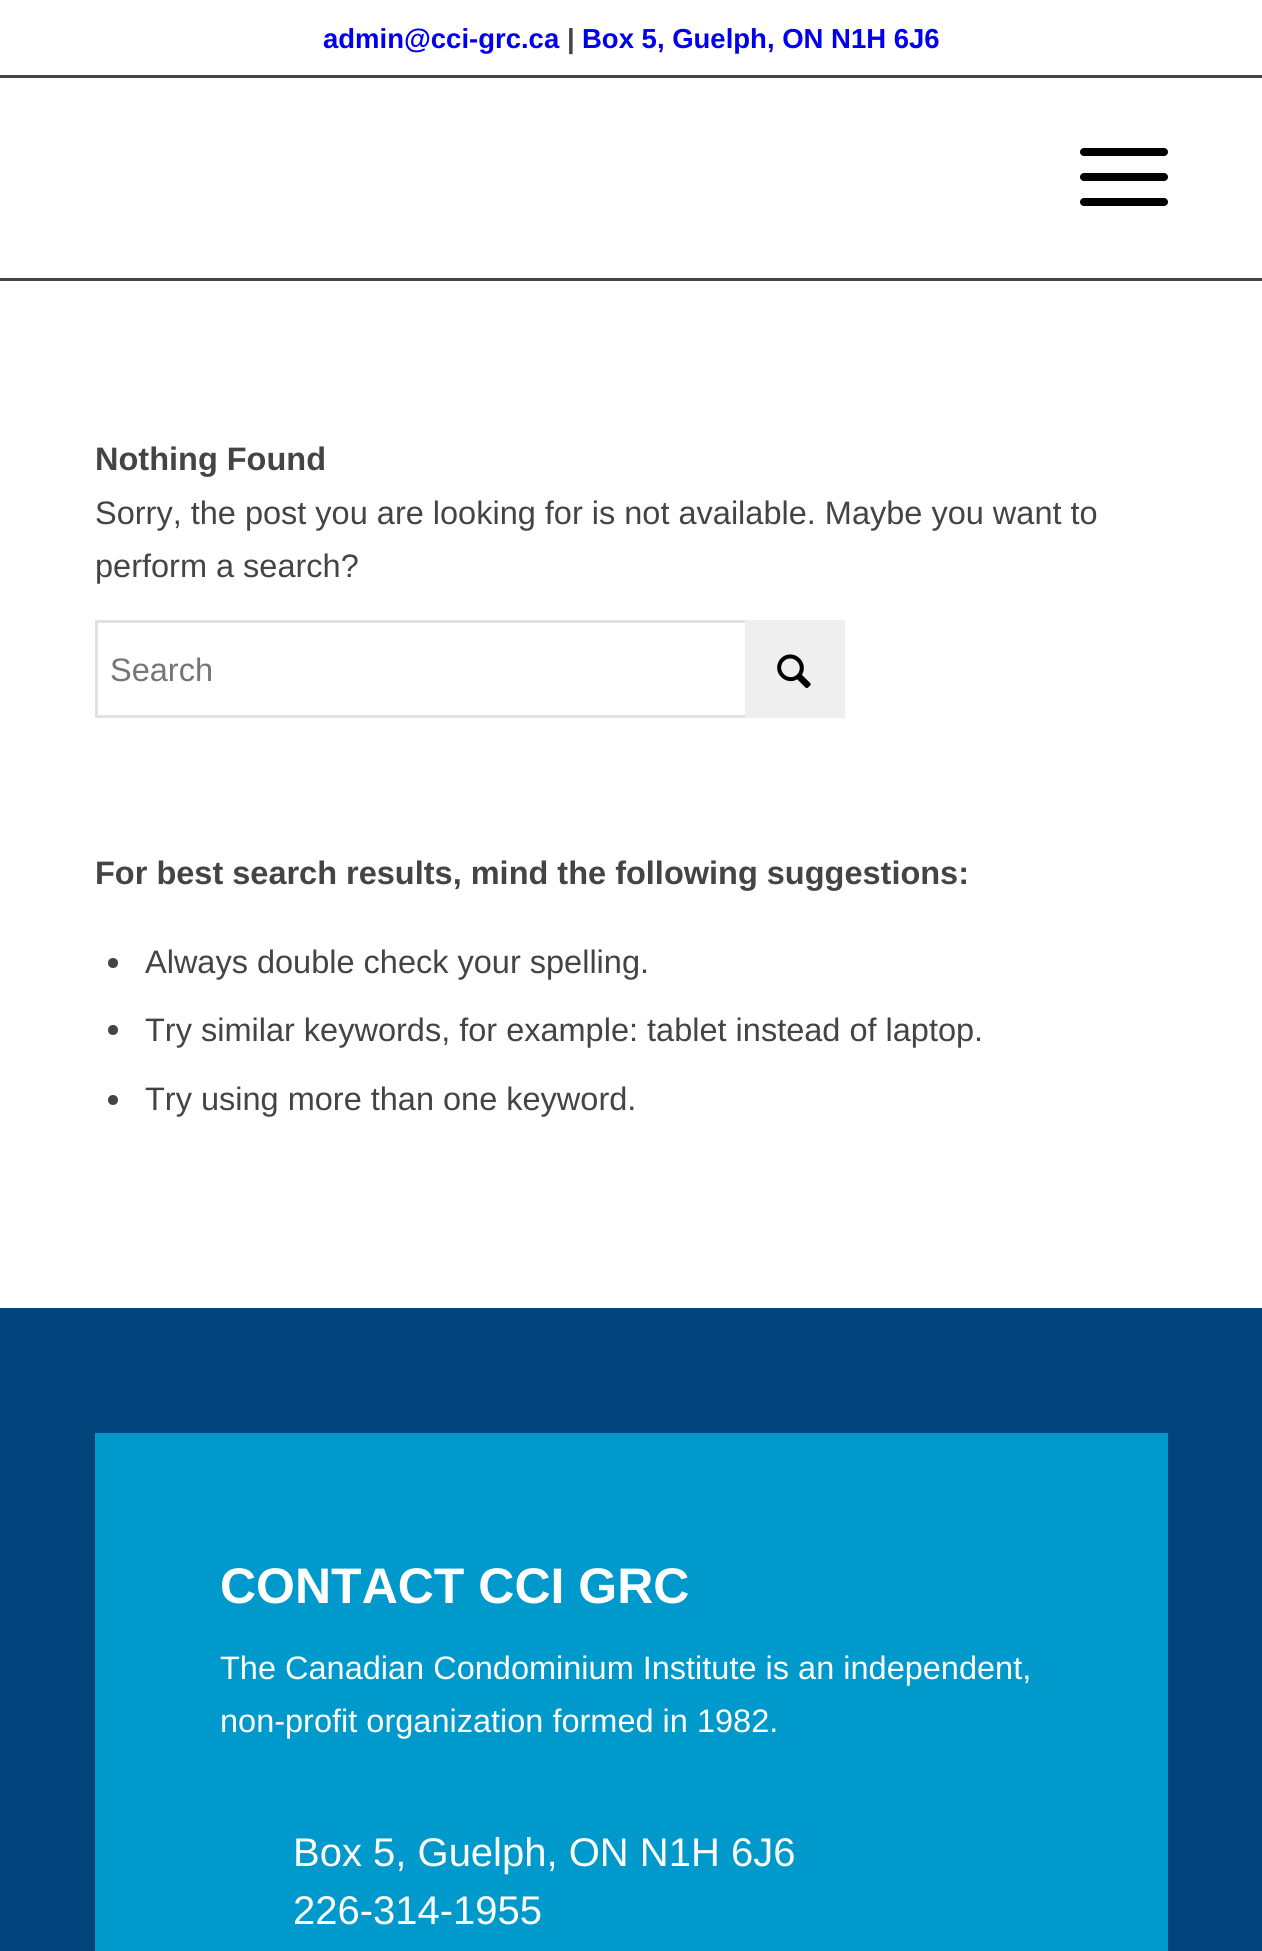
#include <cairo/cairo.h>
#include <math.h>
#include <stddef.h>

static cairo_t *cr;

static void use_color(int r, int g, int b) {
  cairo_set_source_rgb(cr, r / 255.0, g / 255.0, b / 255.0);
}

static void text(double x, double y, const char *s, const char *family, double size, int italic, int bold, int r, int g, int b) {
  cairo_select_font_face(cr, family, italic ? CAIRO_FONT_SLANT_ITALIC : CAIRO_FONT_SLANT_NORMAL,
    bold ? CAIRO_FONT_WEIGHT_BOLD : CAIRO_FONT_WEIGHT_NORMAL);
  cairo_set_font_size(cr, size);
  use_color(r, g, b);
  cairo_move_to(cr, x, y);
  cairo_show_text(cr, s);
}

static void box(double x, double y, double w, double h, int r, int g, int b) {
  use_color(r, g, b);
  cairo_rectangle(cr, x, y, w, h);
  cairo_fill(cr);
}

static void round_rect(double x, double y, double w, double h, double r) {
  cairo_new_sub_path(cr);
  cairo_arc(cr, x + w - r, y + h - r, r, 0, M_PI / 2);
  cairo_arc(cr, x + r, y + h - r, r, M_PI / 2, M_PI);
  cairo_arc(cr, x + r, y + r, r, M_PI, 1.5 * M_PI);
  cairo_arc(cr, x + w - r, y + r, r, 1.5 * M_PI, 2 * M_PI);
  cairo_close_path(cr);
}

static void picture(const char *path, double x, double y, double w, double h) {
  cairo_surface_t *image = cairo_image_surface_create_from_png(path);
  cairo_save(cr);
  cairo_set_source_surface(cr, image, x, y);
  cairo_rectangle(cr, x, y, w, h);
  cairo_fill(cr);
  cairo_restore(cr);
  cairo_surface_destroy(image);
}

static void draw(void) {
  use_color(255, 255, 255);
  cairo_paint(cr);
  box(0, 75, 1262, 3, 68, 68, 68);
  box(0, 278, 1262, 3, 68, 68, 68);
  use_color(0, 0, 0);
  round_rect(1080, 173, 88, 8, 4);
  cairo_fill(cr);
  round_rect(1080, 148, 88, 8, 4);
  cairo_fill(cr);
  round_rect(1080, 198, 88, 8, 4);
  cairo_fill(cr);
  cairo_rectangle(cr, 96.5, 621.5, 747, 95);
  use_color(225, 225, 225);
  cairo_set_line_width(cr, 3);
  cairo_stroke(cr);
  box(745, 620, 100, 98, 239, 239, 239);
  picture("img_01.png", 777, 654, 34, 35);
  use_color(68, 68, 68);
  cairo_arc(cr, 113, 963, 5, 0, 2 * M_PI);
  cairo_fill(cr);
  cairo_arc(cr, 113, 1030, 5, 0, 2 * M_PI);
  cairo_fill(cr);
  cairo_arc(cr, 113, 1100, 5, 0, 2 * M_PI);
  cairo_fill(cr);
  box(0, 1308, 1262, 643, 0, 68, 124);
  box(95, 1433, 1073, 518, 0, 153, 204);
  text(323, 48, "admin@cci-grc.ca", "Liberation Sans", 27.5, 0, 1, 0, 0, 238);
  text(567, 48, "|", "Liberation Sans", 27.5, 0, 1, 68, 68, 68);
  text(582, 48, "Box 5, Guelph, ON N1H 6J6", "Liberation Sans", 27.5, 0, 1, 0, 0, 238);
  text(95, 470, "Nothing Found", "Liberation Sans", 32.5, 0, 1, 68, 68, 68);
  text(95, 524, "Sorry, the post you are looking for is not available. Maybe you want to", "Liberation Sans", 32.5, 0, 0, 68, 68, 68);
  text(95, 577, "perform a search?", "Liberation Sans", 32.5, 0, 0, 68, 68, 68);
  text(110, 681, "Search", "Liberation Sans", 32.5, 0, 0, 117, 117, 117);
  text(95, 884, "For best search results, mind the following suggestions:", "Liberation Sans", 32.5, 0, 1, 68, 68, 68);
  text(145, 973, "Always double check your spelling.", "Liberation Sans", 32.5, 0, 0, 68, 68, 68);
  text(145, 1041, "Try similar keywords, for example: tablet instead of laptop.", "Liberation Sans", 32.5, 0, 0, 68, 68, 68);
  text(145, 1110, "Try using more than one keyword.", "Liberation Sans", 32.5, 0, 0, 68, 68, 68);
  text(220, 1603, "CONTACT CCI GRC", "Liberation Sans", 50, 0, 1, 255, 255, 255);
  text(220, 1679, "The Canadian Condominium Institute is an independent,", "Liberation Sans", 32.5, 0, 0, 255, 255, 255);
  text(220, 1732, "non-profit organization formed in 1982.", "Liberation Sans", 32.5, 0, 0, 255, 255, 255);
  text(293, 1866, "Box 5, Guelph, ON N1H 6J6", "Liberation Sans", 40, 0, 0, 255, 255, 255);
  text(293, 1924, "226-314-1955", "Liberation Sans", 40, 0, 0, 255, 255, 255);
}

int main(void) {
  cairo_surface_t *surface = cairo_image_surface_create(CAIRO_FORMAT_RGB24, 1262, 1951);
  cr = cairo_create(surface);
  cairo_font_options_t *options = cairo_font_options_create();
  cairo_font_options_set_hint_metrics(options, CAIRO_HINT_METRICS_OFF);
  cairo_font_options_set_hint_style(options, CAIRO_HINT_STYLE_NONE);
  cairo_set_font_options(cr, options);
  cairo_set_miter_limit(cr, 4);
  draw();
  cairo_surface_write_to_png(surface, "out.png");
  cairo_font_options_destroy(options);
  cairo_destroy(cr);
  cairo_surface_destroy(surface);
  return 0;
}
